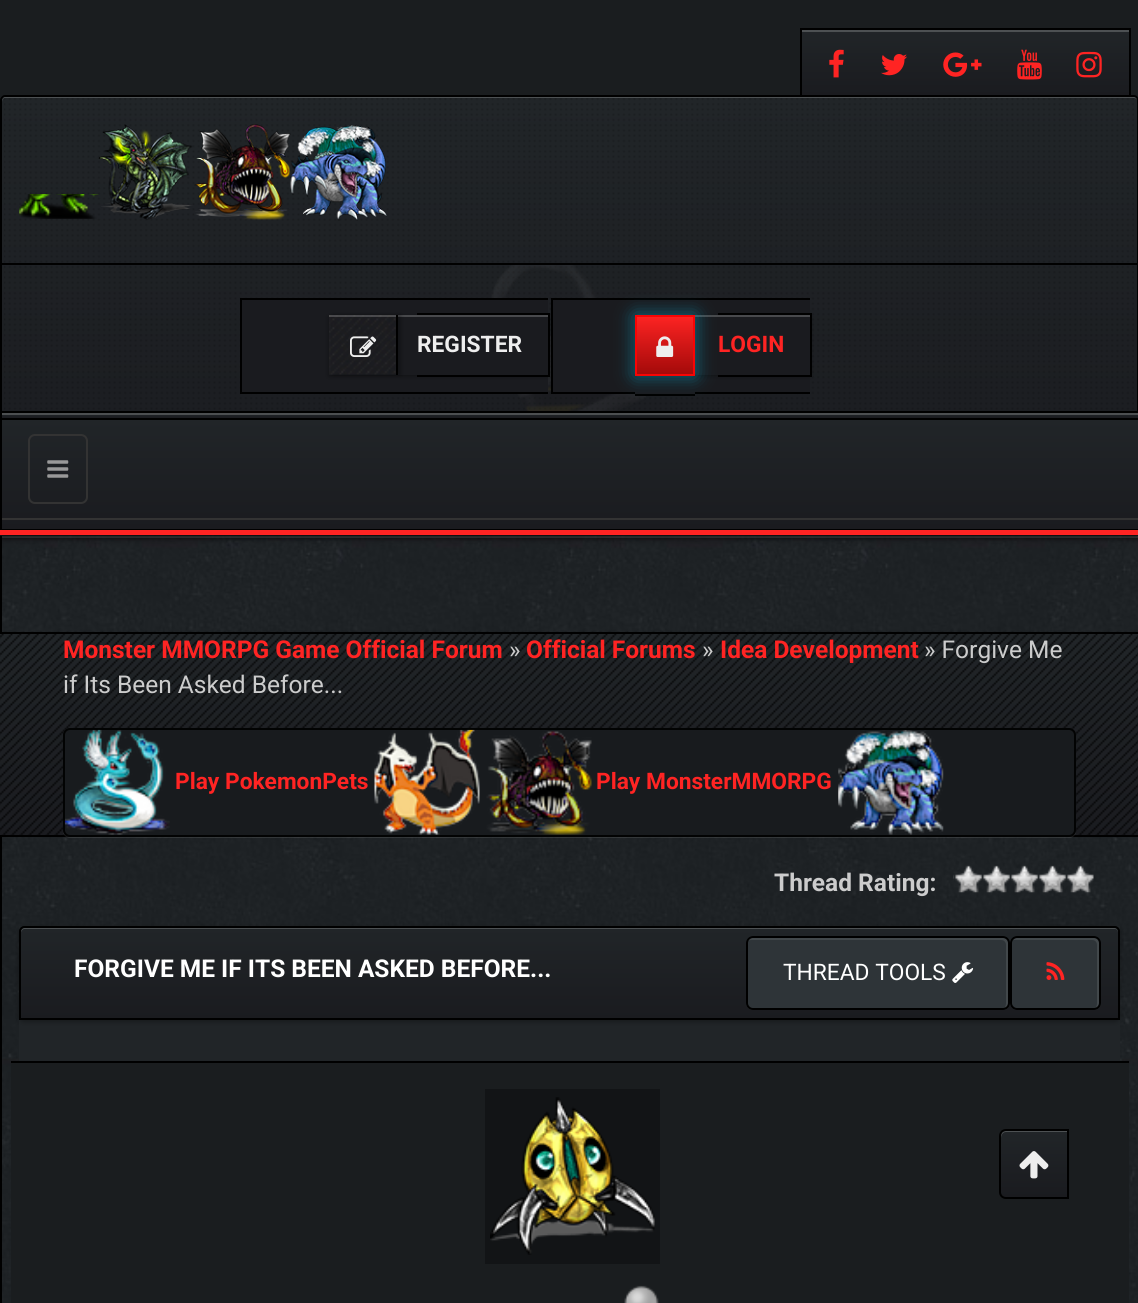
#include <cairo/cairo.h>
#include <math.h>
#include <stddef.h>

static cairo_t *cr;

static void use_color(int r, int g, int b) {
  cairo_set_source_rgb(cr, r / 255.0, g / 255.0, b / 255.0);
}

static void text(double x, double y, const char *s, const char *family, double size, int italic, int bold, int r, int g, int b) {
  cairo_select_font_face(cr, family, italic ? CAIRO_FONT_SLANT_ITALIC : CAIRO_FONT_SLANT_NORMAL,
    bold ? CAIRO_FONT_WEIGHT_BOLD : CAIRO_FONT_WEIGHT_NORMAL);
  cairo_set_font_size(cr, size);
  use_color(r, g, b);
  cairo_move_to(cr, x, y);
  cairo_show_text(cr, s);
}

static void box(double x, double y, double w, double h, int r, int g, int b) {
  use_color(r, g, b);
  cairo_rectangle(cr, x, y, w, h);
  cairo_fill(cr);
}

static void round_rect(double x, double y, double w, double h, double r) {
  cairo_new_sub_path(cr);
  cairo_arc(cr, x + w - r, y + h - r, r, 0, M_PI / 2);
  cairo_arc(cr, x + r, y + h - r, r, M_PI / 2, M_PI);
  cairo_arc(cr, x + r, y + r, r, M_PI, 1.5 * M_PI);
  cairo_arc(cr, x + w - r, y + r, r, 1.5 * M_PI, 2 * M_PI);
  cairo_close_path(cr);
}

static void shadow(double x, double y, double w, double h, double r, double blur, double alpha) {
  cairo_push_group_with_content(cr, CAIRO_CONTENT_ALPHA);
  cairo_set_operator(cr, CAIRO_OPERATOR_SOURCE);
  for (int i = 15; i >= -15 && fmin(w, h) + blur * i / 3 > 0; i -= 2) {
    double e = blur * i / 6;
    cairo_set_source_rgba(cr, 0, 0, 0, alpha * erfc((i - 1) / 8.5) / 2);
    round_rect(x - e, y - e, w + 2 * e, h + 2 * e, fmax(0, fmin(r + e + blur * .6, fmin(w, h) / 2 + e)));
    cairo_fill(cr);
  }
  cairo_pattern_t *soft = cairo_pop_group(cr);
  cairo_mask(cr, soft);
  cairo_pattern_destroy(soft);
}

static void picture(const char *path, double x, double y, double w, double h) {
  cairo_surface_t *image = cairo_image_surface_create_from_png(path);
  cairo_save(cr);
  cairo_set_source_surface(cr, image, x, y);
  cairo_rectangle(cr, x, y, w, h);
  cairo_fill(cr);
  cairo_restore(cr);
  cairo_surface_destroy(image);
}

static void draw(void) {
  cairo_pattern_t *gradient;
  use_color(26, 29, 31);
  cairo_paint(cr);
  cairo_rectangle(cr, 801, 29, 329, 66);
  use_color(0, 0, 0);
  cairo_stroke(cr);
  gradient = cairo_pattern_create_linear(832, 95, 832, 30);
  cairo_pattern_add_color_stop_rgba(gradient, 0, 0.102, 0.106, 0.122, 1);
  cairo_pattern_add_color_stop_rgba(gradient, 1, 0.129, 0.145, 0.157, 1);
  cairo_set_source(cr, gradient);
  cairo_pattern_destroy(gradient);
  cairo_rectangle(cr, 802, 32, 61, 63);
  cairo_fill(cr);
  box(802, 30, 327, 2, 77, 81, 83);
  picture("img_01.png", 829, 49, 15, 29);
  gradient = cairo_pattern_create_linear(894, 95, 894, 30);
  cairo_pattern_add_color_stop_rgba(gradient, 0, 0.102, 0.106, 0.122, 1);
  cairo_pattern_add_color_stop_rgba(gradient, 1, 0.129, 0.145, 0.157, 1);
  cairo_set_source(cr, gradient);
  cairo_pattern_destroy(gradient);
  cairo_rectangle(cr, 863, 32, 63, 63);
  cairo_fill(cr);
  picture("img_02.png", 881, 54, 26, 22);
  gradient = cairo_pattern_create_linear(963, 95, 963, 30);
  cairo_pattern_add_color_stop_rgba(gradient, 0, 0.102, 0.106, 0.122, 1);
  cairo_pattern_add_color_stop_rgba(gradient, 1, 0.129, 0.145, 0.157, 1);
  cairo_set_source(cr, gradient);
  cairo_pattern_destroy(gradient);
  cairo_rectangle(cr, 926, 32, 73, 63);
  cairo_fill(cr);
  picture("img_03.png", 943, 52, 39, 25);
  gradient = cairo_pattern_create_linear(1029, 95, 1029, 30);
  cairo_pattern_add_color_stop_rgba(gradient, 0, 0.102, 0.106, 0.122, 1);
  cairo_pattern_add_color_stop_rgba(gradient, 1, 0.129, 0.145, 0.157, 1);
  cairo_set_source(cr, gradient);
  cairo_pattern_destroy(gradient);
  cairo_rectangle(cr, 999, 32, 60, 63);
  cairo_fill(cr);
  picture("img_04.png", 1017, 49, 25, 31);
  gradient = cairo_pattern_create_linear(1094, 95, 1094, 30);
  cairo_pattern_add_color_stop_rgba(gradient, 0, 0.102, 0.106, 0.122, 1);
  cairo_pattern_add_color_stop_rgba(gradient, 1, 0.129, 0.145, 0.157, 1);
  cairo_set_source(cr, gradient);
  cairo_pattern_destroy(gradient);
  cairo_rectangle(cr, 1059, 32, 70, 63);
  cairo_fill(cr);
  picture("img_05.png", 1076, 51, 26, 27);
  cairo_save(cr);
  cairo_new_path(cr);
  cairo_move_to(cr, 5, 95);
  cairo_line_to(cr, 1134, 95);
  cairo_curve_to(cr, 1137, 95, 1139, 97, 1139, 100);
  cairo_line_to(cr, 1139, 530);
  cairo_line_to(cr, 0, 530);
  cairo_line_to(cr, 0, 100);
  cairo_curve_to(cr, 0, 97, 2, 95, 5, 95);
  cairo_close_path(cr);
  cairo_clip(cr);
  gradient = cairo_pattern_create_linear(570, 529, 570, 96);
  cairo_pattern_add_color_stop_rgba(gradient, 0, 0.102, 0.106, 0.122, 1);
  cairo_pattern_add_color_stop_rgba(gradient, 1, 0.129, 0.145, 0.157, 1);
  cairo_set_source(cr, gradient);
  cairo_pattern_destroy(gradient);
  cairo_rectangle(cr, 0, 96, 1138, 315);
  cairo_fill(cr);
  cairo_restore(cr);
  use_color(77, 81, 83);
  cairo_new_path(cr);
  cairo_move_to(cr, 5, 98);
  cairo_line_to(cr, 1134, 98);
  cairo_curve_to(cr, 1136, 98, 1138, 100, 1138, 102);
  cairo_line_to(cr, 1138, 100);
  cairo_curve_to(cr, 1138, 98, 1136, 96, 1134, 96);
  cairo_line_to(cr, 6, 96);
  cairo_curve_to(cr, 4, 96, 2, 98, 2, 100);
  cairo_line_to(cr, 2, 102);
  cairo_curve_to(cr, 2, 100, 3, 98, 5, 98);
  cairo_close_path(cr);
  cairo_fill(cr);
  use_color(0, 0, 0);
  shadow(0, 537, 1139, 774, 0, 2.5, 0.5);
  picture("img_14.png", 0, 535, 1138, 768);
  cairo_set_source_rgba(cr, 1, 1, 1, 0.2);
  cairo_rectangle(cr, 2, 536, 1136, 2);
  cairo_fill(cr);
  box(0, 536, 2, 767, 0, 0, 0);
  use_color(0, 0, 0);
  shadow(0, 534, 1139, 5, 0, 2.5, 0.6);
  cairo_new_path(cr);
  cairo_move_to(cr, 5, 96);
  cairo_line_to(cr, 1134, 96);
  cairo_curve_to(cr, 1136, 96, 1138, 98, 1138, 100);
  cairo_line_to(cr, 1138, 529);
  cairo_line_to(cr, 1, 529);
  cairo_line_to(cr, 1, 100);
  cairo_curve_to(cr, 1, 98, 3, 96, 5, 96);
  cairo_close_path(cr);
  use_color(0, 0, 0);
  cairo_stroke(cr);
  picture("img_06.png", 4, 98, 1130, 312);
  picture("img_07.png", 19, 194, 80, 25);
  picture("img_08.png", 98, 124, 289, 97);
  picture("img_09.png", 491, 265, 155, 146);
  box(2, 263, 1136, 2, 0, 0, 0);
  box(242, 300, 306, 92, 26, 27, 31);
  box(240, 298, 308, 2, 0, 0, 0);
  box(240, 392, 308, 2, 0, 0, 0);
  box(240, 298, 2, 96, 0, 0, 0);
  box(417, 313, 133, 2, 0, 0, 0);
  box(548, 313, 2, 63, 0, 0, 0);
  box(417, 375, 133, 2, 0, 0, 0);
  use_color(0, 0, 0);
  shadow(329, 317, 219, 59, 0, 2.5, 0.4);
  box(329, 317, 219, 58, 26, 27, 31);
  box(398, 315, 150, 2, 72, 73, 76);
  use_color(0, 0, 0);
  shadow(333, 315, 68, 60, 0, 2, 0.3);
  picture("img_10.png", 329, 315, 67, 60);
  cairo_set_source_rgba(cr, 1, 1, 1, 0.2);
  cairo_rectangle(cr, 329, 315, 67, 2);
  cairo_fill(cr);
  box(396, 315, 2, 60, 0, 0, 0);
  picture("img_11.png", 350, 336, 27, 21);
  box(553, 300, 257, 92, 26, 27, 31);
  box(551, 298, 259, 2, 0, 0, 0);
  box(551, 392, 259, 2, 0, 0, 0);
  box(551, 298, 2, 96, 0, 0, 0);
  box(635, 392, 60, 2, 26, 27, 31);
  box(635, 394, 60, 2, 0, 0, 0);
  box(718, 313, 94, 2, 0, 0, 0);
  box(810, 313, 2, 63, 0, 0, 0);
  box(718, 375, 94, 2, 0, 0, 0);
  use_color(0, 0, 0);
  shadow(635, 317, 175, 59, 0, 2.5, 0.4);
  box(695, 317, 115, 58, 26, 27, 31);
  box(695, 315, 115, 2, 72, 73, 76);
  use_color(5, 199, 247);
  shadow(635, 315, 60, 61, 0, 9, 0.5);
  gradient = cairo_pattern_create_linear(665, 376, 665, 315);
  cairo_pattern_add_color_stop_rgba(gradient, 0, 0.631, 0.035, 0.035, 1);
  cairo_pattern_add_color_stop_rgba(gradient, 1, 1, 0.141, 0.137, 1);
  cairo_set_source(cr, gradient);
  cairo_pattern_destroy(gradient);
  cairo_rectangle(cr, 637, 317, 56, 57);
  cairo_fill(cr);
  cairo_rectangle(cr, 636, 316, 58, 59);
  use_color(247, 5, 5);
  cairo_stroke(cr);
  picture("img_12.png", 656, 336, 18, 21);
  gradient = cairo_pattern_create_linear(570, 418, 570, 413);
  cairo_pattern_add_color_stop_rgba(gradient, 0, 0.102, 0.106, 0.122, 1);
  cairo_pattern_add_color_stop_rgba(gradient, 1, 0.129, 0.145, 0.157, 1);
  cairo_set_source(cr, gradient);
  cairo_pattern_destroy(gradient);
  cairo_rectangle(cr, 2, 415, 1136, 3);
  cairo_fill(cr);
  box(2, 413, 1136, 2, 76, 79, 81);
  box(2, 411, 1136, 2, 0, 0, 0);
  box(2, 418, 1136, 2, 0, 0, 0);
  gradient = cairo_pattern_create_linear(570, 529, 570, 420);
  cairo_pattern_add_color_stop_rgba(gradient, 0, 0.102, 0.106, 0.122, 1);
  cairo_pattern_add_color_stop_rgba(gradient, 1, 0.129, 0.145, 0.157, 1);
  cairo_set_source(cr, gradient);
  cairo_pattern_destroy(gradient);
  cairo_rectangle(cr, 2, 420, 1136, 109);
  cairo_fill(cr);
  box(2, 518, 1136, 2, 51, 51, 51);
  round_rect(29, 435, 58, 68, 6);
  cairo_stroke(cr);
  picture("img_13.png", 47, 460, 22, 18);
  box(0, 530, 1138, 5, 255, 36, 35);
  gradient = cairo_pattern_create_linear(570, 837, 570, 632);
  cairo_pattern_add_color_stop_rgba(gradient, 0, 0.102, 0.106, 0.122, 1);
  cairo_pattern_add_color_stop_rgba(gradient, 1, 0.129, 0.145, 0.157, 1);
  cairo_set_source(cr, gradient);
  cairo_pattern_destroy(gradient);
  cairo_rectangle(cr, 0, 634, 1138, 201);
  cairo_fill(cr);
  picture("img_15.png", 0, 631, 1138, 204);
  cairo_rectangle(cr, -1, 633, 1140, 203);
  use_color(0, 0, 0);
  cairo_stroke(cr);
  cairo_set_source_rgba(cr, 1, 1, 1, 0.1);
  cairo_new_path(cr);
  cairo_move_to(cr, 63, 830);
  cairo_line_to(cr, 63, 831);
  cairo_curve_to(cr, 63, 835, 66, 838, 70, 838);
  cairo_line_to(cr, 1069, 838);
  cairo_curve_to(cr, 1073, 838, 1076, 835, 1076, 831);
  cairo_curve_to(cr, 1075, 834, 1072, 836, 1069, 836);
  cairo_line_to(cr, 70, 836);
  cairo_curve_to(cr, 66, 836, 63, 833, 63, 830);
  cairo_close_path(cr);
  cairo_fill(cr);
  use_color(24, 27, 30);
  round_rect(63, 728, 1013, 109, 7);
  cairo_fill(cr);
  round_rect(64, 729, 1011, 107, 6);
  cairo_set_source_rgba(cr, 0, 0, 0, 0.9);
  cairo_stroke(cr);
  picture("img_16.png", 64, 729, 106, 106);
  picture("img_17.png", 374, 729, 106, 106);
  picture("img_18.png", 486, 731, 106, 104);
  picture("img_19.png", 838, 730, 106, 105);
  picture("img_20.png", 953, 865, 141, 28);
  box(19, 926, 1101, 135, 33, 37, 40);
  use_color(0, 0, 0);
  shadow(19, 928, 1101, 94, 5, 2.5, 0.3);
  cairo_save(cr);
  cairo_new_path(cr);
  cairo_move_to(cr, 24, 926);
  cairo_line_to(cr, 1115, 926);
  cairo_curve_to(cr, 1118, 926, 1120, 928, 1120, 931);
  cairo_line_to(cr, 1120, 1020);
  cairo_line_to(cr, 19, 1020);
  cairo_line_to(cr, 19, 931);
  cairo_curve_to(cr, 19, 928, 21, 926, 24, 926);
  cairo_close_path(cr);
  cairo_clip(cr);
  gradient = cairo_pattern_create_linear(570, 1019, 570, 928);
  cairo_pattern_add_color_stop_rgba(gradient, 0, 0.102, 0.106, 0.122, 1);
  cairo_pattern_add_color_stop_rgba(gradient, 1, 0.129, 0.145, 0.157, 1);
  cairo_set_source(cr, gradient);
  cairo_pattern_destroy(gradient);
  cairo_rectangle(cr, 19, 928, 1101, 90);
  cairo_fill(cr);
  cairo_restore(cr);
  use_color(77, 81, 83);
  cairo_new_path(cr);
  cairo_move_to(cr, 24, 929);
  cairo_line_to(cr, 1115, 929);
  cairo_curve_to(cr, 1117, 929, 1118, 931, 1118, 933);
  cairo_curve_to(cr, 1118, 930, 1117, 928, 1114, 928);
  cairo_line_to(cr, 25, 928);
  cairo_curve_to(cr, 22, 928, 21, 930, 21, 933);
  cairo_curve_to(cr, 21, 931, 23, 929, 24, 929);
  cairo_close_path(cr);
  cairo_fill(cr);
  cairo_new_path(cr);
  cairo_move_to(cr, 24, 927);
  cairo_line_to(cr, 1115, 927);
  cairo_curve_to(cr, 1117, 927, 1119, 929, 1119, 931);
  cairo_line_to(cr, 1119, 1019);
  cairo_line_to(cr, 20, 1019);
  cairo_line_to(cr, 20, 931);
  cairo_curve_to(cr, 20, 929, 22, 927, 24, 927);
  cairo_close_path(cr);
  use_color(0, 0, 0);
  cairo_stroke(cr);
  use_color(46, 52, 56);
  round_rect(746, 936, 264, 74, 7);
  cairo_fill(cr);
  use_color(66, 72, 75);
  cairo_new_path(cr);
  cairo_move_to(cr, 751, 940);
  cairo_line_to(cr, 1001, 940);
  cairo_curve_to(cr, 1004, 940, 1006, 942, 1006, 945);
  cairo_line_to(cr, 1006, 1004);
  cairo_line_to(cr, 1005, 1008);
  cairo_curve_to(cr, 1007, 1007, 1008, 1005, 1008, 1003);
  cairo_line_to(cr, 1008, 943);
  cairo_curve_to(cr, 1008, 940, 1006, 938, 1003, 938);
  cairo_line_to(cr, 752, 938);
  cairo_curve_to(cr, 750, 938, 748, 939, 747, 942);
  cairo_curve_to(cr, 748, 941, 749, 940, 751, 940);
  cairo_close_path(cr);
  cairo_fill(cr);
  round_rect(747, 937, 262, 72, 6);
  use_color(0, 0, 0);
  cairo_stroke(cr);
  picture("img_21.png", 952, 962, 22, 21);
  use_color(46, 52, 56);
  round_rect(1010, 936, 91, 74, 7);
  cairo_fill(cr);
  use_color(66, 72, 75);
  cairo_new_path(cr);
  cairo_move_to(cr, 1015, 940);
  cairo_line_to(cr, 1092, 940);
  cairo_curve_to(cr, 1095, 940, 1097, 942, 1097, 945);
  cairo_line_to(cr, 1097, 1004);
  cairo_line_to(cr, 1096, 1008);
  cairo_curve_to(cr, 1098, 1007, 1099, 1005, 1099, 1003);
  cairo_line_to(cr, 1099, 943);
  cairo_curve_to(cr, 1099, 940, 1097, 938, 1094, 938);
  cairo_line_to(cr, 1017, 938);
  cairo_curve_to(cr, 1015, 938, 1014, 939, 1013, 940);
  cairo_close_path(cr);
  cairo_fill(cr);
  round_rect(1011, 937, 89, 72, 6);
  use_color(0, 0, 0);
  cairo_stroke(cr);
  picture("img_22.png", 1046, 962, 19, 18);
  box(11, 1063, 1118, 240, 26, 29, 31);
  cairo_save(cr);
  cairo_rectangle(cr, 11, 1020, 1118, 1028);
  cairo_clip(cr);
  cairo_new_path(cr);
  cairo_move_to(cr, -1, 1062);
  cairo_line_to(cr, 1130, 1062);
  cairo_curve_to(cr, 1135.5, 1062, 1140, 1066.5, 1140, 1072);
  cairo_line_to(cr, 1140, 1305);
  cairo_curve_to(cr, 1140, 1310.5, 1135.5, 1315, 1130, 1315);
  cairo_line_to(cr, -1, 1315);
  cairo_close_path(cr);
  use_color(0, 0, 0);
  cairo_stroke(cr);
  cairo_restore(cr);
  box(485, 1089, 175, 175, 18, 20, 22);
  picture("img_23.png", 490, 1097, 165, 158);
  picture("img_24.png", 624, 1285, 35, 18);
  cairo_save(cr);
  cairo_new_path(cr);
  cairo_move_to(cr, 1006, 1129);
  cairo_line_to(cr, 1069, 1129);
  cairo_line_to(cr, 1069, 1199);
  cairo_line_to(cr, 1006, 1199);
  cairo_curve_to(cr, 1002, 1199, 999, 1196, 999, 1192);
  cairo_line_to(cr, 999, 1136);
  cairo_curve_to(cr, 999, 1132, 1002, 1129, 1006, 1129);
  cairo_close_path(cr);
  cairo_clip(cr);
  gradient = cairo_pattern_create_linear(1034, 1197, 1034, 1131);
  cairo_pattern_add_color_stop_rgba(gradient, 0, 0.102, 0.106, 0.122, 1);
  cairo_pattern_add_color_stop_rgba(gradient, 1, 0.129, 0.145, 0.157, 1);
  cairo_set_source(cr, gradient);
  cairo_pattern_destroy(gradient);
  cairo_rectangle(cr, 999, 1131, 68, 66);
  cairo_fill(cr);
  cairo_restore(cr);
  use_color(77, 81, 83);
  cairo_new_path(cr);
  cairo_move_to(cr, 1006, 1132);
  cairo_line_to(cr, 1068, 1132);
  cairo_line_to(cr, 1068, 1131);
  cairo_line_to(cr, 1006, 1131);
  cairo_curve_to(cr, 1003, 1131, 1001, 1133, 1001, 1136);
  cairo_line_to(cr, 1001, 1138);
  cairo_curve_to(cr, 1001, 1135, 1003, 1132, 1006, 1132);
  cairo_close_path(cr);
  cairo_fill(cr);
  cairo_new_path(cr);
  cairo_move_to(cr, 1006, 1130);
  cairo_line_to(cr, 1068, 1130);
  cairo_line_to(cr, 1068, 1198);
  cairo_line_to(cr, 1006, 1198);
  cairo_curve_to(cr, 1002.5, 1198, 1000, 1195.5, 1000, 1192);
  cairo_line_to(cr, 1000, 1136);
  cairo_curve_to(cr, 1000, 1132.5, 1002.5, 1130, 1006, 1130);
  cairo_close_path(cr);
  use_color(0, 0, 0);
  cairo_stroke(cr);
  picture("img_25.png", 1019, 1151, 30, 28);
  text(417, 352, "REGISTER", "Roboto", 22.75, 0, 1, 238, 238, 238);
  text(718, 352, "LOGIN", "Roboto", 22.75, 0, 1, 255, 36, 35);
  text(63, 658, "Monster MMORPG Game Official Forum", "Roboto", 24.5, 0, 1, 255, 36, 35);
  text(509, 658, "»", "Roboto", 24.5, 0, 0, 204, 204, 204);
  text(526, 658, "Official Forums", "Roboto", 24.5, 0, 1, 255, 36, 35);
  text(702, 658, "»", "Roboto", 24.5, 0, 0, 204, 204, 204);
  text(720, 658, "Idea Development", "Roboto", 24.5, 0, 1, 255, 36, 35);
  text(924, 658, "» Forgive Me", "Roboto", 24.5, 0, 0, 204, 204, 204);
  text(63, 693, "if Its Been Asked Before...", "Roboto", 24.5, 0, 0, 204, 204, 204);
  text(175, 789, "Play PokemonPets", "Roboto", 22.75, 0, 1, 255, 36, 35);
  text(596, 789, "Play MonsterMMORPG", "Roboto", 22.75, 0, 1, 255, 36, 35);
  text(774, 891, "Thread Rating:", "Roboto", 24.5, 0, 1, 204, 204, 204);
  text(74, 977, "FORGIVE ME IF ITS BEEN ASKED BEFORE...", "Roboto", 24.5, 0, 1, 255, 255, 255);
  text(783, 980, "THREAD TOOLS", "Roboto", 22.75, 0, 0, 255, 255, 255);
}

int main(void) {
  cairo_surface_t *surface = cairo_image_surface_create(CAIRO_FORMAT_RGB24, 1138, 1303);
  cr = cairo_create(surface);
  cairo_font_options_t *options = cairo_font_options_create();
  cairo_font_options_set_hint_metrics(options, CAIRO_HINT_METRICS_OFF);
  cairo_font_options_set_hint_style(options, CAIRO_HINT_STYLE_NONE);
  cairo_set_font_options(cr, options);
  cairo_set_miter_limit(cr, 4);
  draw();
  cairo_surface_write_to_png(surface, "out.png");
  cairo_font_options_destroy(options);
  cairo_destroy(cr);
  cairo_surface_destroy(surface);
  return 0;
}
